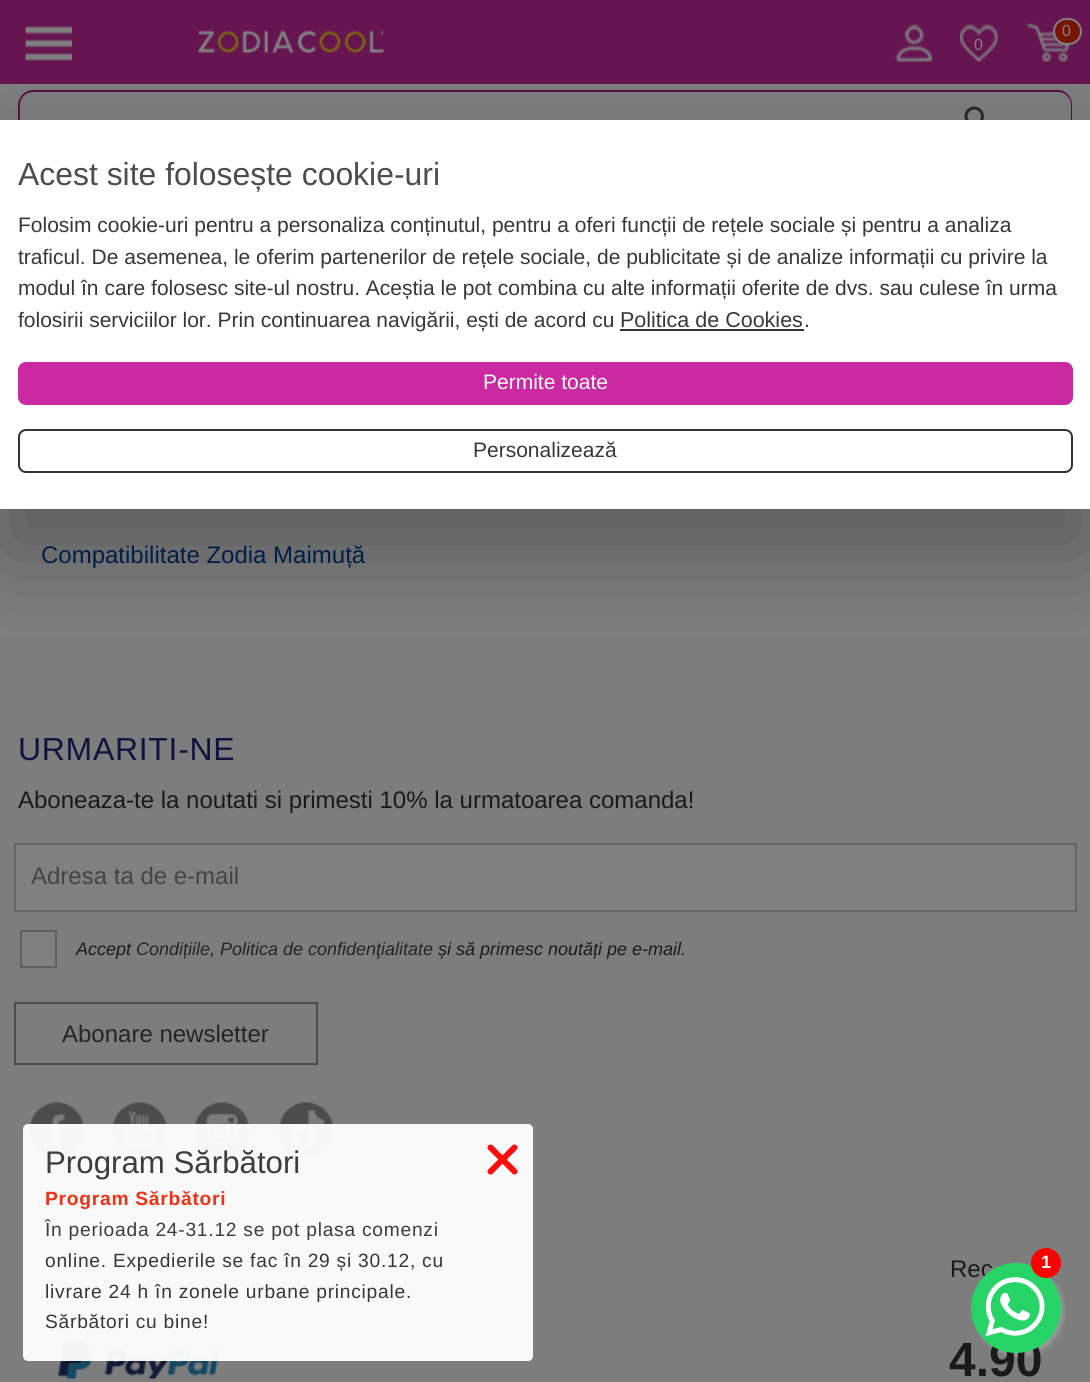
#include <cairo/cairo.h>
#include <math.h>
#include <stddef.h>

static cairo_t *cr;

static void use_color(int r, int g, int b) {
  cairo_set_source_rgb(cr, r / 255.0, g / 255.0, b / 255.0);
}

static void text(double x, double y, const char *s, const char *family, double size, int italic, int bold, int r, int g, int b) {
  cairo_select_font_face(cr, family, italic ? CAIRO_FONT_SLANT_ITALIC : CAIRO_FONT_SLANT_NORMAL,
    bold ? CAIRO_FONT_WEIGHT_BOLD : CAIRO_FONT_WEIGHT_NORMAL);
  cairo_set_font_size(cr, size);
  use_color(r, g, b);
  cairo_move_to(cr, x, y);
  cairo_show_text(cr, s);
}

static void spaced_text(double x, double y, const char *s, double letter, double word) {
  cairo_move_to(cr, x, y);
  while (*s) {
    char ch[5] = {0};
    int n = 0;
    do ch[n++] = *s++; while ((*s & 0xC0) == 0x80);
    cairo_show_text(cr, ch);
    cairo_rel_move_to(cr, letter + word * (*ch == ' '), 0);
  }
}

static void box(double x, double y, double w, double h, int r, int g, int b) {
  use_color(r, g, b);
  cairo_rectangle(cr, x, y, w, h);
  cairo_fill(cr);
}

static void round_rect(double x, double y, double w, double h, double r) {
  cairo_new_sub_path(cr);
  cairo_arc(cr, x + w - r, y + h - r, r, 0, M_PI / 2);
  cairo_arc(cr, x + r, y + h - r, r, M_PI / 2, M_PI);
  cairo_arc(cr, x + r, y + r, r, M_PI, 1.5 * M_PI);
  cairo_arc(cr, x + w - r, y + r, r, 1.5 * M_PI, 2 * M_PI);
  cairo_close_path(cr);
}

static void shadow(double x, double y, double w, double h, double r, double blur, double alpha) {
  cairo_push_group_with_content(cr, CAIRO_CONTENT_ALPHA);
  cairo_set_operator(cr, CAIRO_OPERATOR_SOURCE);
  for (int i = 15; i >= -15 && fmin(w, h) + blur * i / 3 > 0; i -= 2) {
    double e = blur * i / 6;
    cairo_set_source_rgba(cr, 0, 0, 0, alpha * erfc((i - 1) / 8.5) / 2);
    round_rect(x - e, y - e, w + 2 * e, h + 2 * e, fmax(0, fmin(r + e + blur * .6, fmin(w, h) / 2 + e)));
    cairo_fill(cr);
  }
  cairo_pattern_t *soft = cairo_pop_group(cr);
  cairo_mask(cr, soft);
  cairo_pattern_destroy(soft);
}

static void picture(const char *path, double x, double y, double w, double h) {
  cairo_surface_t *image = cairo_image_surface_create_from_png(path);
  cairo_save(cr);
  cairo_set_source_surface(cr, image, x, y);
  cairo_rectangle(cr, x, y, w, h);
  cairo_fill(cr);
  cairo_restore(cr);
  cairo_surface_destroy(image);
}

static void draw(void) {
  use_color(128, 128, 128);
  cairo_paint(cr);
  box(0, 0, 1090, 84, 102, 21, 81);
  picture("img_01.png", 25, 26, 47, 35);
  picture("img_02.png", 198, 30, 186, 24);
  picture("img_03.png", 895, 24, 38, 38);
  picture("img_04.png", 1026, 23, 45, 39);
  use_color(120, 20, 5);
  round_rect(1054, 19, 27, 25, 12.5);
  cairo_fill_preserve(cr);
  use_color(128, 128, 128);
  cairo_stroke(cr);
  picture("img_05.png", 960, 24, 38, 38);
  use_color(90, 15, 71);
  cairo_set_fill_rule(cr, CAIRO_FILL_RULE_EVEN_ODD);
  cairo_new_path(cr);
  cairo_move_to(cr, 33, 90);
  cairo_line_to(cr, 944, 90);
  cairo_line_to(cr, 944, 150);
  cairo_line_to(cr, 33, 150);
  cairo_curve_to(cr, 25, 150, 18, 143, 18, 135);
  cairo_line_to(cr, 18, 105);
  cairo_curve_to(cr, 18, 97, 25, 90, 33, 90);
  cairo_close_path(cr);
  cairo_move_to(cr, 33, 92);
  cairo_line_to(cr, 944, 92);
  cairo_line_to(cr, 944, 148);
  cairo_line_to(cr, 33, 148);
  cairo_curve_to(cr, 26, 148, 20, 142, 20, 135);
  cairo_line_to(cr, 20, 105);
  cairo_curve_to(cr, 20, 98, 26, 92, 33, 92);
  cairo_close_path(cr);
  cairo_fill(cr);
  use_color(128, 128, 128);
  cairo_new_path(cr);
  cairo_move_to(cr, 942, 90);
  cairo_line_to(cr, 1058, 90);
  cairo_curve_to(cr, 1066.5, 90, 1073, 96.5, 1073, 105);
  cairo_line_to(cr, 1073, 135);
  cairo_curve_to(cr, 1073, 143.5, 1066.5, 150, 1058, 150);
  cairo_line_to(cr, 942, 150);
  cairo_close_path(cr);
  cairo_fill(cr);
  use_color(90, 15, 71);
  cairo_new_path(cr);
  cairo_move_to(cr, 942, 90);
  cairo_line_to(cr, 1058, 90);
  cairo_curve_to(cr, 1066, 90, 1072, 97, 1072, 105);
  cairo_line_to(cr, 1072, 135);
  cairo_curve_to(cr, 1072, 143, 1066, 150, 1058, 150);
  cairo_line_to(cr, 942, 150);
  cairo_close_path(cr);
  cairo_move_to(cr, 942, 92);
  cairo_line_to(cr, 1058, 92);
  cairo_curve_to(cr, 1065, 92, 1071, 98, 1071, 105);
  cairo_line_to(cr, 1071, 135);
  cairo_curve_to(cr, 1071, 142, 1065, 148, 1058, 148);
  cairo_line_to(cr, 942, 148);
  cairo_close_path(cr);
  cairo_fill(cr);
  picture("img_06.png", 964, 106, 20, 14);
  box(0, 635, 1090, 747, 125, 125, 125);
  use_color(0, 0, 0);
  shadow(0, 165, 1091, 389, 0, 52.5, 0.3);
  box(0, 120, 1090, 389, 255, 255, 255);
  box(620, 329, 184, 2, 51, 51, 51);
  use_color(203, 41, 162);
  round_rect(19, 363, 1053, 41, 7);
  cairo_fill_preserve(cr);
  cairo_stroke(cr);
  round_rect(19, 430, 1053, 42, 7);
  use_color(51, 51, 51);
  cairo_stroke(cr);
  picture("img_08.png", 29, 1102, 55, 55);
  picture("img_09.png", 112, 1102, 55, 55);
  picture("img_10.png", 195, 1102, 55, 55);
  picture("img_11.png", 278, 1102, 55, 55);
  picture("img_12.png", 58, 1340, 162, 39);
  cairo_set_source_rgba(cr, 1, 1, 1, 0.95);
  round_rect(23, 1124, 510, 237, 5);
  cairo_fill(cr);
  picture("img_07.png", 487, 1144, 31, 31);
  use_color(128, 128, 128);
  cairo_rectangle(cr, 15, 844, 1061, 67);
  cairo_fill_preserve(cr);
  use_color(102, 102, 102);
  cairo_stroke(cr);
  use_color(128, 128, 128);
  cairo_rectangle(cr, 21, 931, 35, 36);
  cairo_fill_preserve(cr);
  use_color(96, 96, 96);
  cairo_stroke(cr);
  cairo_rectangle(cr, 15, 1003, 302, 61);
  use_color(77, 77, 77);
  cairo_stroke(cr);
  use_color(153, 153, 153);
  shadow(974, 1266, 90, 90, 45, 2, 1);
  text(1062, 36, "0", "Liberation Sans", 16, 0, 0, 128, 128, 128);
  text(974, 50, "0", "Liberation Sans", 16, 0, 0, 128, 128, 128);
  text(18, 185, "Acest site folosește cookie-uri", "Liberation Sans", 31.9, 0, 0, 76, 76, 76);
  text(18, 232, "Folosim cookie-uri pentru a personaliza conținutul, pentru a oferi funcții de rețele sociale și pentru a analiza", "Liberation Sans", 21, 0, 0, 55, 55, 55);
  text(18, 264, "traficul. De asemenea, le oferim partenerilor de rețele sociale, de publicitate și de analize informații cu privire la", "Liberation Sans", 21, 0, 0, 55, 55, 55);
  text(18, 295, "modul în care folosesc site-ul nostru. Aceștia le pot combina cu alte informații oferite de dvs. sau culese în urma", "Liberation Sans", 21, 0, 0, 55, 55, 55);
  text(18, 327, "folosirii serviciilor lor. Prin continuarea navigării, ești de acord cu", "Liberation Sans", 21, 0, 0, 55, 55, 55);
  text(620, 327, "Politica de Cookies", "Liberation Sans", 21.5, 0, 0, 55, 55, 55);
  text(804, 327, ".", "Liberation Sans", 21, 0, 0, 55, 55, 55);
  text(483, 389, "Permite toate", "Liberation Sans", 21, 0, 0, 255, 255, 255);
  text(473, 457, "Personalizează", "Liberation Sans", 21, 0, 0, 55, 55, 55);
  text(41, 563, "Compatibilitate Zodia Maimuță", "Liberation Sans", 24, 0, 0, 0, 30, 74);
  text(45, 1173, "Program Sărbători", "Liberation Sans", 31.25, 0, 0, 61, 61, 61);
  cairo_select_font_face(cr, "Liberation Sans", CAIRO_FONT_SLANT_NORMAL, CAIRO_FONT_WEIGHT_BOLD);
  cairo_set_font_size(cr, 19.2);
  use_color(239, 50, 21);
  spaced_text(45, 1205, "Program Sărbători", 0.75, 0);
  cairo_select_font_face(cr, "Liberation Sans", CAIRO_FONT_SLANT_NORMAL, CAIRO_FONT_WEIGHT_NORMAL);
  use_color(61, 61, 61);
  spaced_text(45, 1236, "În perioada 24-31.12 se pot plasa comenzi", 0.75, 0);
  use_color(55, 55, 55);
  spaced_text(45, 1267, "online. Expedierile se fac în 29 și 30.12, cu", 0.75, 0);
  spaced_text(45, 1298, "livrare 24 h în zonele urbane principale.", 0.75, 0);
  spaced_text(45, 1328, "Sărbători cu bine!", 0.75, 0);
  cairo_set_font_size(cr, 31.9);
  use_color(19, 18, 62);
  spaced_text(18, 760, "URMARITI-NE", 0.75, 0);
  text(18, 808, "Aboneaza-te la noutati si primesti 10% la urmatoarea comanda!", "Liberation Sans", 24, 0, 0, 26, 26, 26);
  text(31, 884, "Adresa ta de e-mail", "Liberation Sans", 24, 0, 0, 68, 68, 68);
  text(76, 955, "Accept", "Liberation Sans", 18, 1, 0, 26, 26, 26);
  text(136, 955, "Condițiile", "Liberation Sans", 18, 1, 0, 36, 36, 36);
  text(210, 955, ",", "Liberation Sans", 18, 1, 0, 26, 26, 26);
  text(220, 955, "Politica de confidenţialitate", "Liberation Sans", 18, 1, 0, 36, 36, 36);
  text(438, 955, "și să primesc noutăți pe e-mail.", "Liberation Sans", 18, 1, 0, 26, 26, 26);
  text(62, 1042, "Abonare newsletter", "Liberation Sans", 24, 0, 0, 36, 36, 36);
  text(950, 1277, "Rec", "Liberation Sans", 24, 0, 0, 26, 26, 26);
  text(949, 1376, "4.90", "Liberation Sans", 48, 0, 1, 26, 26, 26);
  use_color(37, 211, 102);
  cairo_new_path(cr);
  cairo_arc(cr, 1016, 1308, 45, 0, 2 * M_PI);
  cairo_fill(cr);
  picture("img_13.png", 985, 1277, 60, 60);
  use_color(255, 0, 0);
  cairo_arc(cr, 1046, 1263, 15, 0, 2 * M_PI);
  cairo_fill(cr);
  text(1041, 1268, "1", "Liberation Sans", 18, 0, 1, 255, 255, 255);
}

int main(void) {
  cairo_surface_t *surface = cairo_image_surface_create(CAIRO_FORMAT_RGB24, 1090, 1382);
  cr = cairo_create(surface);
  cairo_font_options_t *options = cairo_font_options_create();
  cairo_font_options_set_hint_metrics(options, CAIRO_HINT_METRICS_OFF);
  cairo_font_options_set_hint_style(options, CAIRO_HINT_STYLE_NONE);
  cairo_set_font_options(cr, options);
  cairo_set_miter_limit(cr, 4);
  draw();
  cairo_surface_write_to_png(surface, "out.png");
  cairo_font_options_destroy(options);
  cairo_destroy(cr);
  cairo_surface_destroy(surface);
  return 0;
}
